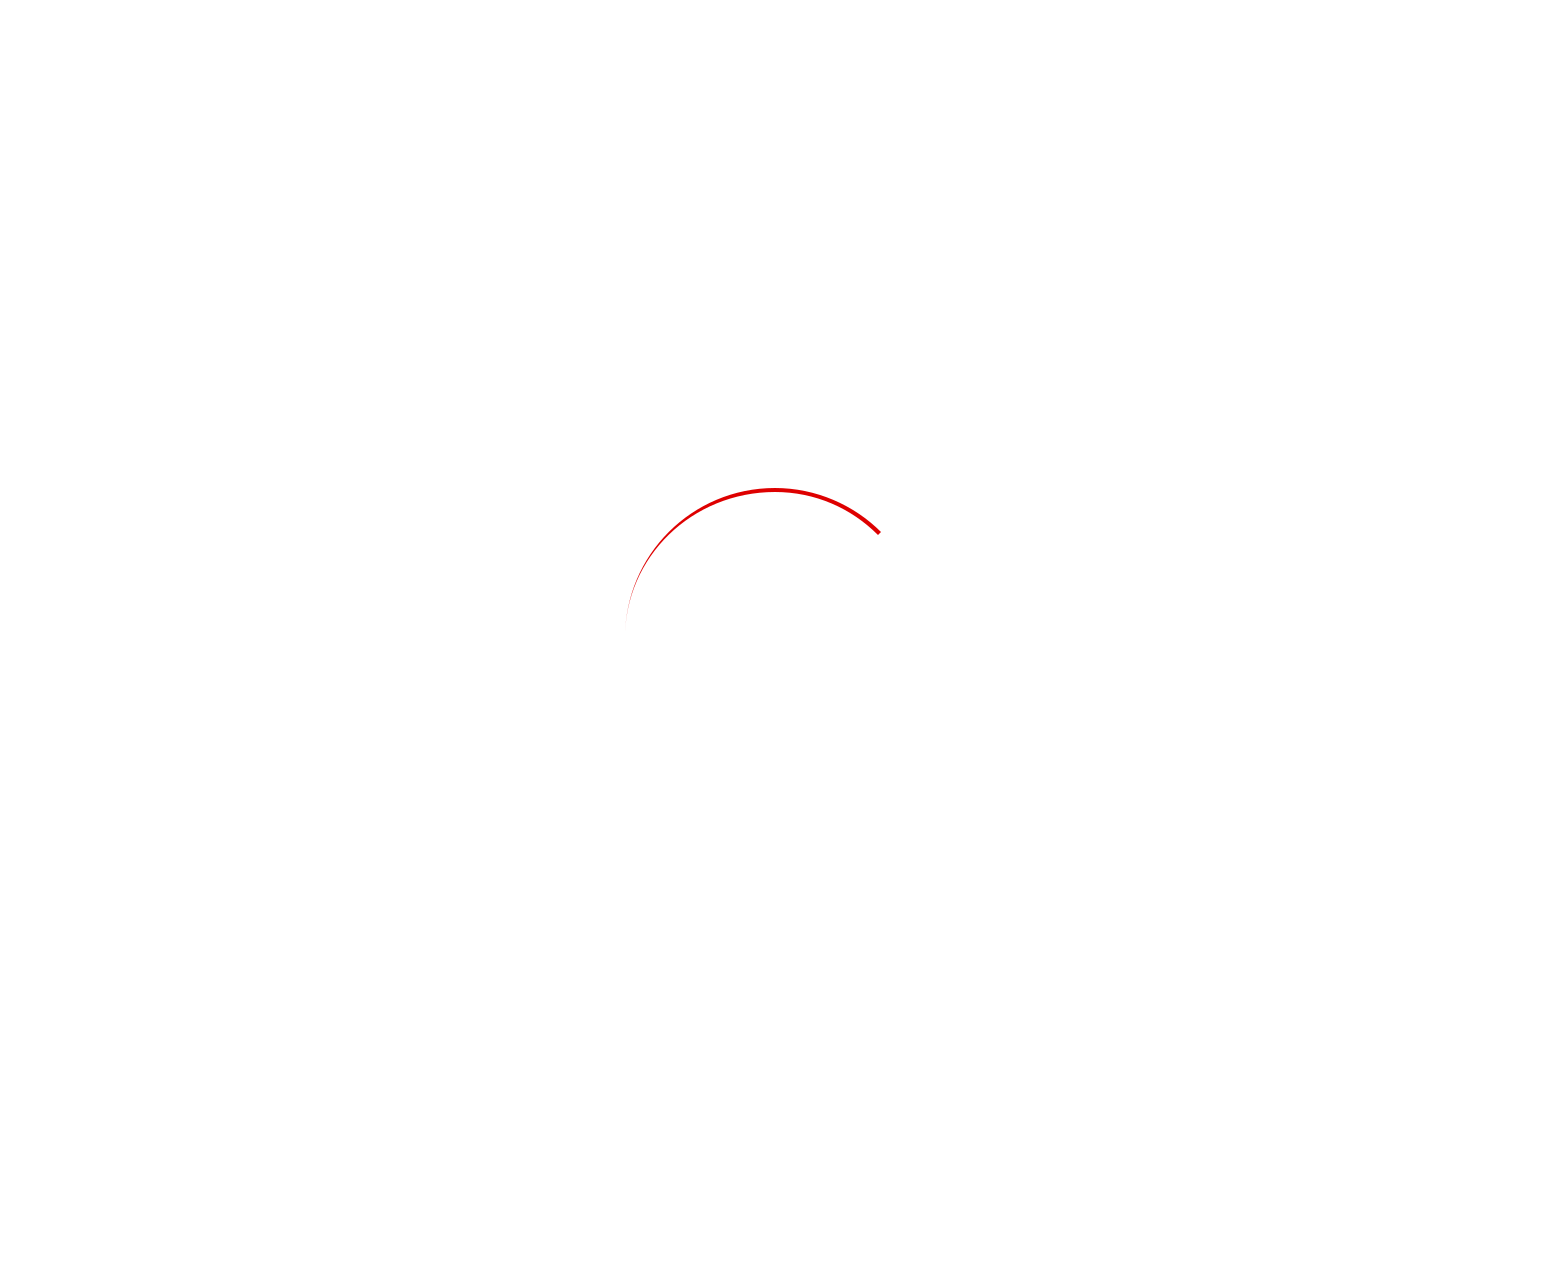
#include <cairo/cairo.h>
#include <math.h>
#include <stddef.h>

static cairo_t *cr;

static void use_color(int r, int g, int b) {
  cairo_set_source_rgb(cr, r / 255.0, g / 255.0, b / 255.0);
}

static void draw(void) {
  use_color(255, 255, 255);
  cairo_paint(cr);
  use_color(222, 0, 0);
  cairo_new_path(cr);
  cairo_move_to(cr, 775, 488);
  cairo_curve_to(cr, 816, 488, 854, 505, 881, 532);
  cairo_line_to(cr, 878, 535);
  cairo_curve_to(cr, 851, 508, 815, 492, 775, 492);
  cairo_curve_to(cr, 692, 492, 625, 557, 625, 638);
  cairo_curve_to(cr, 625, 555, 692, 488, 775, 488);
  cairo_close_path(cr);
  cairo_fill(cr);
}

int main(void) {
  cairo_surface_t *surface = cairo_image_surface_create(CAIRO_FORMAT_RGB24, 1546, 1275);
  cr = cairo_create(surface);
  cairo_font_options_t *options = cairo_font_options_create();
  cairo_font_options_set_hint_metrics(options, CAIRO_HINT_METRICS_OFF);
  cairo_font_options_set_hint_style(options, CAIRO_HINT_STYLE_NONE);
  cairo_set_font_options(cr, options);
  cairo_set_miter_limit(cr, 4);
  draw();
  cairo_surface_write_to_png(surface, "out.png");
  cairo_font_options_destroy(options);
  cairo_destroy(cr);
  cairo_surface_destroy(surface);
  return 0;
}
